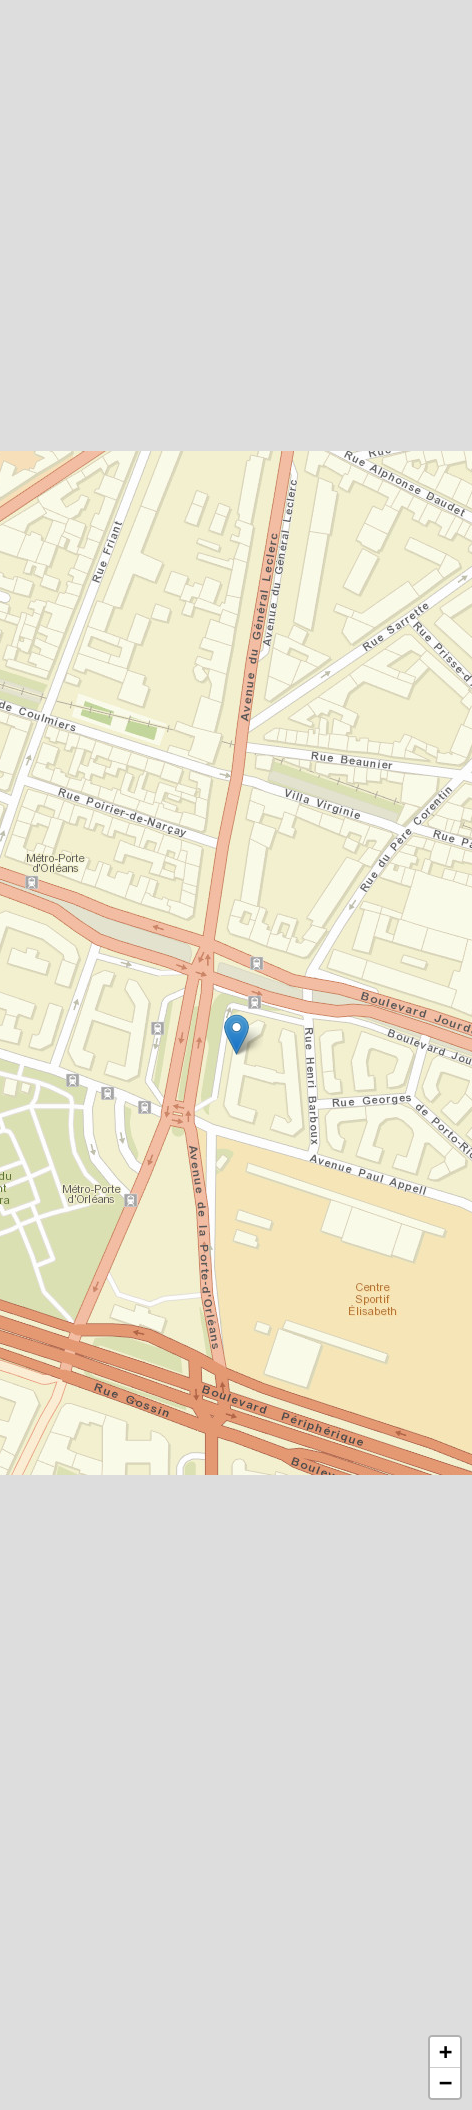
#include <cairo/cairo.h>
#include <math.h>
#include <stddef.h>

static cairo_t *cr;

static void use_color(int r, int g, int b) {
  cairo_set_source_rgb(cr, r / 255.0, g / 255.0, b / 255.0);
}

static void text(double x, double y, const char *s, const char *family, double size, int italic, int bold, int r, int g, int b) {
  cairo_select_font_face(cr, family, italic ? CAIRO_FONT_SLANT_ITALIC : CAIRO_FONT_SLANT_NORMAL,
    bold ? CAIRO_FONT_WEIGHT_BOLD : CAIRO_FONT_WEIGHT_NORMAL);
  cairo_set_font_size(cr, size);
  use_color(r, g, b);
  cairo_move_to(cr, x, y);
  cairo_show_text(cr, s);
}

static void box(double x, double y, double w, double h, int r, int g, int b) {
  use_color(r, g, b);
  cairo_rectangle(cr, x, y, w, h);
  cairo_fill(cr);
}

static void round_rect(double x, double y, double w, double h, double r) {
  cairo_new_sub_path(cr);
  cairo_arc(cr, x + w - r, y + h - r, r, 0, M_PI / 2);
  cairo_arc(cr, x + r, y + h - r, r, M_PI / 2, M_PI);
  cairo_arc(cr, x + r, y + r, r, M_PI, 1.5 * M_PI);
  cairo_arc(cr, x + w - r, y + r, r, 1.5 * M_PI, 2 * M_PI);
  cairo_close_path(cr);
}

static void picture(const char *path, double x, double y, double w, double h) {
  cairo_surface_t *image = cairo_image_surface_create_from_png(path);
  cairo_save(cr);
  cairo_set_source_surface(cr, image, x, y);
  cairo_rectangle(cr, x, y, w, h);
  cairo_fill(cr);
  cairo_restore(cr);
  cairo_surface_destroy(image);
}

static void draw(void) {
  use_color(221, 221, 221);
  cairo_paint(cr);
  picture("img_01.png", 0, 451, 25, 256);
  picture("img_02.png", 25, 451, 256, 256);
  picture("img_03.png", 281, 451, 191, 256);
  picture("img_04.png", 0, 707, 25, 256);
  picture("img_05.png", 25, 707, 256, 256);
  picture("img_06.png", 281, 707, 191, 256);
  picture("img_07.png", 0, 963, 25, 256);
  picture("img_08.png", 25, 963, 256, 256);
  picture("img_09.png", 281, 963, 191, 256);
  picture("img_10.png", 0, 1219, 25, 256);
  picture("img_11.png", 25, 1219, 256, 256);
  picture("img_12.png", 281, 1219, 191, 256);
  picture("img_14.png", 234, 1027, 29, 28);
  picture("img_13.png", 224, 1014, 25, 41);
  round_rect(429, 2036, 32, 63, 3);
  use_color(177, 177, 177);
  cairo_stroke(cr);
  use_color(255, 255, 255);
  cairo_new_path(cr);
  cairo_move_to(cr, 432, 2037);
  cairo_line_to(cr, 458, 2037);
  cairo_curve_to(cr, 459, 2037, 460, 2038, 460, 2039);
  cairo_line_to(cr, 460, 2068);
  cairo_line_to(cr, 430, 2068);
  cairo_line_to(cr, 430, 2039);
  cairo_curve_to(cr, 430, 2038, 431, 2037, 432, 2037);
  cairo_close_path(cr);
  cairo_fill(cr);
  box(430, 2067, 30, 1, 204, 204, 204);
  use_color(255, 255, 255);
  cairo_new_path(cr);
  cairo_move_to(cr, 430, 2068);
  cairo_line_to(cr, 460, 2068);
  cairo_line_to(cr, 460, 2096);
  cairo_curve_to(cr, 460, 2097, 459, 2098, 458, 2098);
  cairo_line_to(cr, 432, 2098);
  cairo_curve_to(cr, 431, 2098, 430, 2097, 430, 2096);
  cairo_close_path(cr);
  cairo_fill(cr);
  text(439, 2059, "+", "DejaVu Sans Mono", 22, 0, 1, 0, 0, 0);
  text(439, 2090, "−", "DejaVu Sans Mono", 22, 0, 1, 0, 0, 0);
}

int main(void) {
  cairo_surface_t *surface = cairo_image_surface_create(CAIRO_FORMAT_RGB24, 472, 2110);
  cr = cairo_create(surface);
  cairo_font_options_t *options = cairo_font_options_create();
  cairo_font_options_set_hint_metrics(options, CAIRO_HINT_METRICS_OFF);
  cairo_font_options_set_hint_style(options, CAIRO_HINT_STYLE_NONE);
  cairo_set_font_options(cr, options);
  cairo_set_miter_limit(cr, 4);
  draw();
  cairo_surface_write_to_png(surface, "out.png");
  cairo_font_options_destroy(options);
  cairo_destroy(cr);
  cairo_surface_destroy(surface);
  return 0;
}
